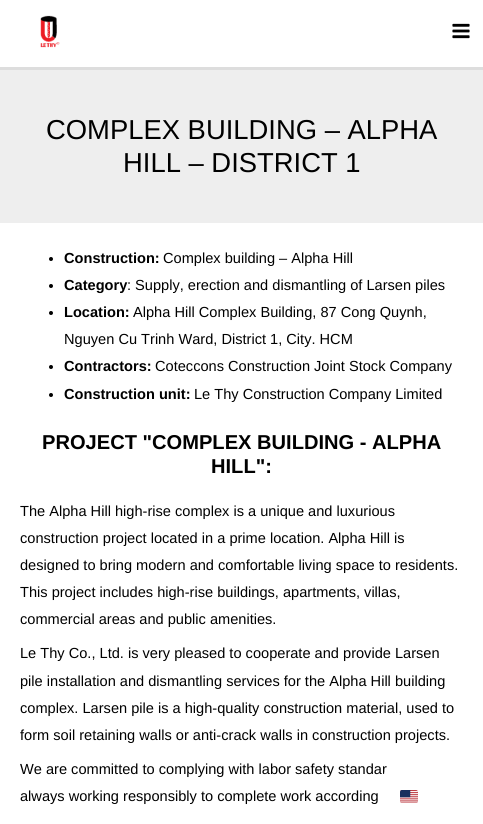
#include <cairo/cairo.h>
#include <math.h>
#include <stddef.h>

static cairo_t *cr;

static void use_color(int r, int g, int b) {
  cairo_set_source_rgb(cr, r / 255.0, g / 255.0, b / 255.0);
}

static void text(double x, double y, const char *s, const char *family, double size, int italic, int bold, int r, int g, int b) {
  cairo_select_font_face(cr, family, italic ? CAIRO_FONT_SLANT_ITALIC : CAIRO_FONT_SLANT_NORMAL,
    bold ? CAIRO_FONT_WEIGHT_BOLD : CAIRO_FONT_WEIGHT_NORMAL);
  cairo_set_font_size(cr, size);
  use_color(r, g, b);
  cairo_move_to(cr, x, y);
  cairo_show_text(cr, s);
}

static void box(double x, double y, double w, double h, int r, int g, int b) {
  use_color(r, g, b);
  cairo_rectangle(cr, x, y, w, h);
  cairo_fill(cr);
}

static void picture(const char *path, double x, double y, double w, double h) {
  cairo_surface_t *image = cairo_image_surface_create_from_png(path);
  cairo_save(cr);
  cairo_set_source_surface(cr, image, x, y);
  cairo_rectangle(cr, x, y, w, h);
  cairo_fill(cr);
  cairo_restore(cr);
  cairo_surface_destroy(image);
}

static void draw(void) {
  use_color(255, 255, 255);
  cairo_paint(cr);
  box(0, 67, 483, 3, 221, 221, 221);
  picture("img_01.png", 40, 15, 20, 33);
  picture("img_02.png", 452, 23, 18, 16);
  box(0, 70, 483, 153, 238, 238, 238);
  use_color(0, 0, 0);
  cairo_arc(cr, 51, 259, 2, 0, 2 * M_PI);
  cairo_fill(cr);
  cairo_arc(cr, 51, 286, 2, 0, 2 * M_PI);
  cairo_fill(cr);
  cairo_arc(cr, 51, 313, 2, 0, 2 * M_PI);
  cairo_fill(cr);
  cairo_arc(cr, 51, 367, 2, 0, 2 * M_PI);
  cairo_fill(cr);
  cairo_arc(cr, 51, 395, 2, 0, 2 * M_PI);
  cairo_fill(cr);
  text(46, 139, "COMPLEX BUILDING – ALPHA", "Liberation Sans", 27.4, 0, 0, 0, 0, 0);
  text(123, 172, "HILL – DISTRICT 1", "Liberation Sans", 27.4, 0, 0, 0, 0, 0);
  text(64, 263, "Construction:", "Liberation Sans", 14.6, 0, 1, 0, 0, 0);
  text(163, 263, "Complex building – Alpha Hill", "Liberation Sans", 14.6, 0, 0, 0, 0, 0);
  text(64, 290, "Category", "Liberation Sans", 14.6, 0, 1, 0, 0, 0);
  text(127, 290, ": Supply, erection and dismantling of Larsen piles", "Liberation Sans", 14.6, 0, 0, 0, 0, 0);
  text(64, 317, "Location:", "Liberation Sans", 14.6, 0, 1, 0, 0, 0);
  text(133, 317, "Alpha Hill Complex Building, 87 Cong Quynh,", "Liberation Sans", 14.6, 0, 0, 0, 0, 0);
  text(64, 344, "Nguyen Cu Trinh Ward, District 1, City. HCM", "Liberation Sans", 14.6, 0, 0, 0, 0, 0);
  text(64, 371, "Contractors:", "Liberation Sans", 14.6, 0, 1, 0, 0, 0);
  text(155, 371, "Coteccons Construction Joint Stock Company", "Liberation Sans", 14.6, 0, 0, 0, 0, 0);
  text(64, 399, "Construction unit:", "Liberation Sans", 14.6, 0, 1, 0, 0, 0);
  text(194, 399, "Le Thy Construction Company Limited", "Liberation Sans", 14.6, 0, 0, 0, 0, 0);
  text(42, 449, "PROJECT \"COMPLEX BUILDING - ALPHA", "Liberation Sans", 20.1, 0, 1, 0, 0, 0);
  text(211, 473, "HILL\":", "Liberation Sans", 20.1, 0, 1, 0, 0, 0);
  text(20, 516, "The Alpha Hill high-rise complex is a unique and luxurious", "Liberation Sans", 14.6, 0, 0, 0, 0, 0);
  text(20, 543, "construction project located in a prime location. Alpha Hill is", "Liberation Sans", 14.6, 0, 0, 0, 0, 0);
  text(20, 570, "designed to bring modern and comfortable living space to residents.", "Liberation Sans", 14.6, 0, 0, 0, 0, 0);
  text(20, 597, "This project includes high-rise buildings, apartments, villas,", "Liberation Sans", 14.6, 0, 0, 0, 0, 0);
  text(20, 624, "commercial areas and public amenities.", "Liberation Sans", 14.6, 0, 0, 0, 0, 0);
  text(20, 658, "Le Thy Co., Ltd. is very pleased to cooperate and provide Larsen", "Liberation Sans", 14.6, 0, 0, 0, 0, 0);
  text(20, 686, "pile installation and dismantling services for the Alpha Hill building", "Liberation Sans", 14.6, 0, 0, 0, 0, 0);
  text(20, 713, "complex. Larsen pile is a high-quality construction material, used to", "Liberation Sans", 14.6, 0, 0, 0, 0, 0);
  text(20, 740, "form soil retaining walls or anti-crack walls in construction projects.", "Liberation Sans", 14.6, 0, 0, 0, 0, 0);
  text(20, 774, "We are committed to complying with labor safety standar", "Liberation Sans", 14.6, 0, 0, 0, 0, 0);
  text(20, 801, "always working responsibly to complete work according", "Liberation Sans", 14.6, 0, 0, 0, 0, 0);
  cairo_set_source_rgba(cr, 1, 1, 1, 0.7);
  cairo_new_path(cr);
  cairo_move_to(cr, 391, 769);
  cairo_line_to(cr, 427, 769);
  cairo_curve_to(cr, 431.5, 769, 435, 772.5, 435, 777);
  cairo_line_to(cr, 435, 824);
  cairo_line_to(cr, 383, 824);
  cairo_line_to(cr, 383, 777);
  cairo_curve_to(cr, 383, 772.5, 386.5, 769, 391, 769);
  cairo_close_path(cr);
  cairo_fill(cr);
  picture("img_03.png", 400, 790, 18, 13);
}

int main(void) {
  cairo_surface_t *surface = cairo_image_surface_create(CAIRO_FORMAT_RGB24, 483, 824);
  cr = cairo_create(surface);
  cairo_font_options_t *options = cairo_font_options_create();
  cairo_font_options_set_hint_metrics(options, CAIRO_HINT_METRICS_OFF);
  cairo_font_options_set_hint_style(options, CAIRO_HINT_STYLE_NONE);
  cairo_set_font_options(cr, options);
  cairo_set_miter_limit(cr, 4);
  draw();
  cairo_surface_write_to_png(surface, "out.png");
  cairo_font_options_destroy(options);
  cairo_destroy(cr);
  cairo_surface_destroy(surface);
  return 0;
}
